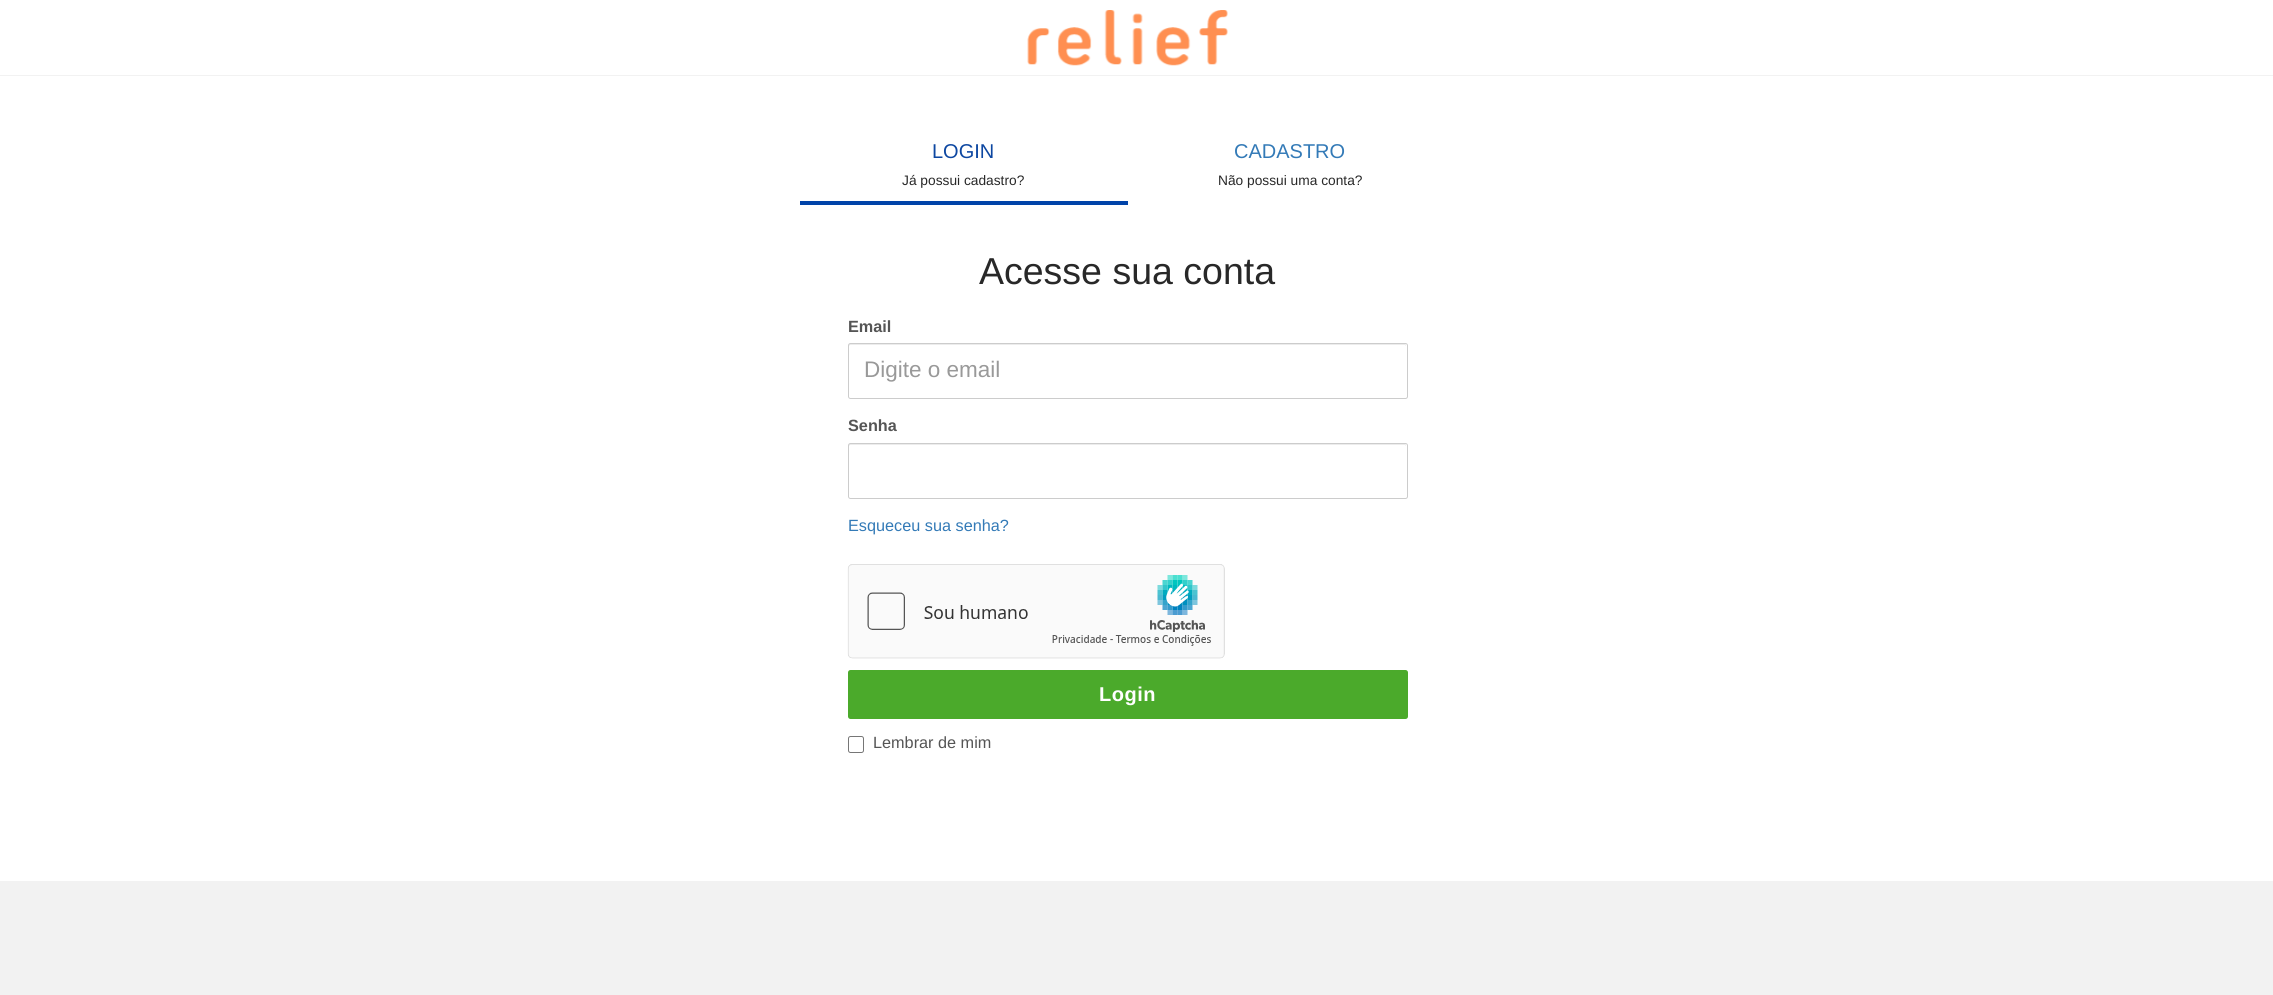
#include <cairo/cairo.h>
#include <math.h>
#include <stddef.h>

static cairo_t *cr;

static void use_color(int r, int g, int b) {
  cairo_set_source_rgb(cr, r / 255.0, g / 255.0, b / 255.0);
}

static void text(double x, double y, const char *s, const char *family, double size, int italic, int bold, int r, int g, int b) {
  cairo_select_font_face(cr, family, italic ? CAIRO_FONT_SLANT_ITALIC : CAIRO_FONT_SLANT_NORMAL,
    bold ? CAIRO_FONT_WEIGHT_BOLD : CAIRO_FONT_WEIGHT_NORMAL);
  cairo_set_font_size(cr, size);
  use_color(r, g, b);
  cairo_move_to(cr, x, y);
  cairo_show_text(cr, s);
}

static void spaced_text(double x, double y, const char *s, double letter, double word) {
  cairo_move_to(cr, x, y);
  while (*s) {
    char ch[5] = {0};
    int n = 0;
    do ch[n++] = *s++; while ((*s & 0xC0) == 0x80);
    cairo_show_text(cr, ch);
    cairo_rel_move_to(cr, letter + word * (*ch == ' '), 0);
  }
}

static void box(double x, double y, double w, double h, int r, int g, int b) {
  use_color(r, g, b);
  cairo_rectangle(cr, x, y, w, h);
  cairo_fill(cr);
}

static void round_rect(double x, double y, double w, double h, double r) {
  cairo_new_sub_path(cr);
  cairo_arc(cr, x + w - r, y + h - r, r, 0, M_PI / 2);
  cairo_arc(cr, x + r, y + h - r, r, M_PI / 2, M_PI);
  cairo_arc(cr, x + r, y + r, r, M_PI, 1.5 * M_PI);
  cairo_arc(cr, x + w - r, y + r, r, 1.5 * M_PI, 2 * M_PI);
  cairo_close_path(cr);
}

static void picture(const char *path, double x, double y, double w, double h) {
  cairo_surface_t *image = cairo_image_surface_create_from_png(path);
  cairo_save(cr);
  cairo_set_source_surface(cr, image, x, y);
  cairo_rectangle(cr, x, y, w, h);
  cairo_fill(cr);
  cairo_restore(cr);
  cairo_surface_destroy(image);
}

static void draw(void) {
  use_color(242, 242, 242);
  cairo_paint(cr);
  box(0, 0, 2273, 881, 255, 255, 255);
  box(0, 75, 2273, 1, 242, 242, 242);
  picture("img_01.png", 1027, 10, 201, 56);
  box(800, 201, 328, 4, 0, 67, 169);
  use_color(236, 236, 236);
  cairo_new_path(cr);
  cairo_move_to(cr, 850, 345);
  cairo_line_to(cr, 1405, 345);
  cairo_line_to(cr, 1406, 346);
  cairo_curve_to(cr, 1406, 345, 1406, 344, 1405, 344);
  cairo_line_to(cr, 850, 344);
  cairo_line_to(cr, 849, 344);
  cairo_line_to(cr, 849, 346);
  cairo_close_path(cr);
  cairo_fill(cr);
  round_rect(848.5, 343.5, 559, 55, 2);
  use_color(204, 204, 204);
  cairo_set_line_width(cr, 1);
  cairo_stroke(cr);
  use_color(236, 236, 236);
  cairo_new_path(cr);
  cairo_move_to(cr, 850, 445);
  cairo_line_to(cr, 1405, 445);
  cairo_line_to(cr, 1406, 446);
  cairo_curve_to(cr, 1406, 445, 1406, 444, 1405, 444);
  cairo_line_to(cr, 850, 444);
  cairo_line_to(cr, 849, 444);
  cairo_line_to(cr, 849, 446);
  cairo_close_path(cr);
  cairo_fill(cr);
  round_rect(848.5, 443.5, 559, 55, 2);
  use_color(204, 204, 204);
  cairo_stroke(cr);
  picture("img_02.png", 847, 564, 378, 95);
  use_color(75, 170, 43);
  round_rect(848, 670, 560, 49, 2.5);
  cairo_fill(cr);
  round_rect(848.5, 736.5, 15, 16, 2);
  use_color(118, 118, 118);
  cairo_stroke(cr);
  text(932, 158, "LOGIN", "Liberation Sans", 20, 0, 0, 13, 71, 161);
  text(902, 185, "Já possui cadastro?", "Liberation Sans", 13.75, 0, 0, 40, 40, 40);
  text(1234, 158, "CADASTRO", "Liberation Sans", 20, 0, 0, 51, 122, 183);
  text(1218, 185, "Não possui uma conta?", "Liberation Sans", 13.75, 0, 0, 40, 40, 40);
  text(979, 284, "Acesse sua conta", "Liberation Sans", 37.5, 0, 0, 40, 40, 40);
  text(848, 332, "Email", "Liberation Sans", 16.25, 0, 1, 85, 85, 85);
  text(864, 377, "Digite o email", "Liberation Sans", 22.5, 0, 0, 153, 153, 153);
  text(848, 431, "Senha", "Liberation Sans", 16.25, 0, 1, 85, 85, 85);
  text(848, 531, "Esqueceu sua senha?", "Liberation Sans", 16.25, 0, 0, 51, 122, 183);
  cairo_select_font_face(cr, "Liberation Sans", CAIRO_FONT_SLANT_NORMAL, CAIRO_FONT_WEIGHT_BOLD);
  cairo_set_font_size(cr, 20);
  use_color(255, 255, 255);
  spaced_text(1099, 701, "Login", 0.5, 0);
  text(873, 748, "Lembrar de mim", "Liberation Sans", 16.25, 0, 0, 85, 85, 85);
}

int main(void) {
  cairo_surface_t *surface = cairo_image_surface_create(CAIRO_FORMAT_RGB24, 2273, 995);
  cr = cairo_create(surface);
  cairo_font_options_t *options = cairo_font_options_create();
  cairo_font_options_set_hint_metrics(options, CAIRO_HINT_METRICS_OFF);
  cairo_font_options_set_hint_style(options, CAIRO_HINT_STYLE_NONE);
  cairo_set_font_options(cr, options);
  cairo_set_miter_limit(cr, 4);
  draw();
  cairo_surface_write_to_png(surface, "out.png");
  cairo_font_options_destroy(options);
  cairo_destroy(cr);
  cairo_surface_destroy(surface);
  return 0;
}
